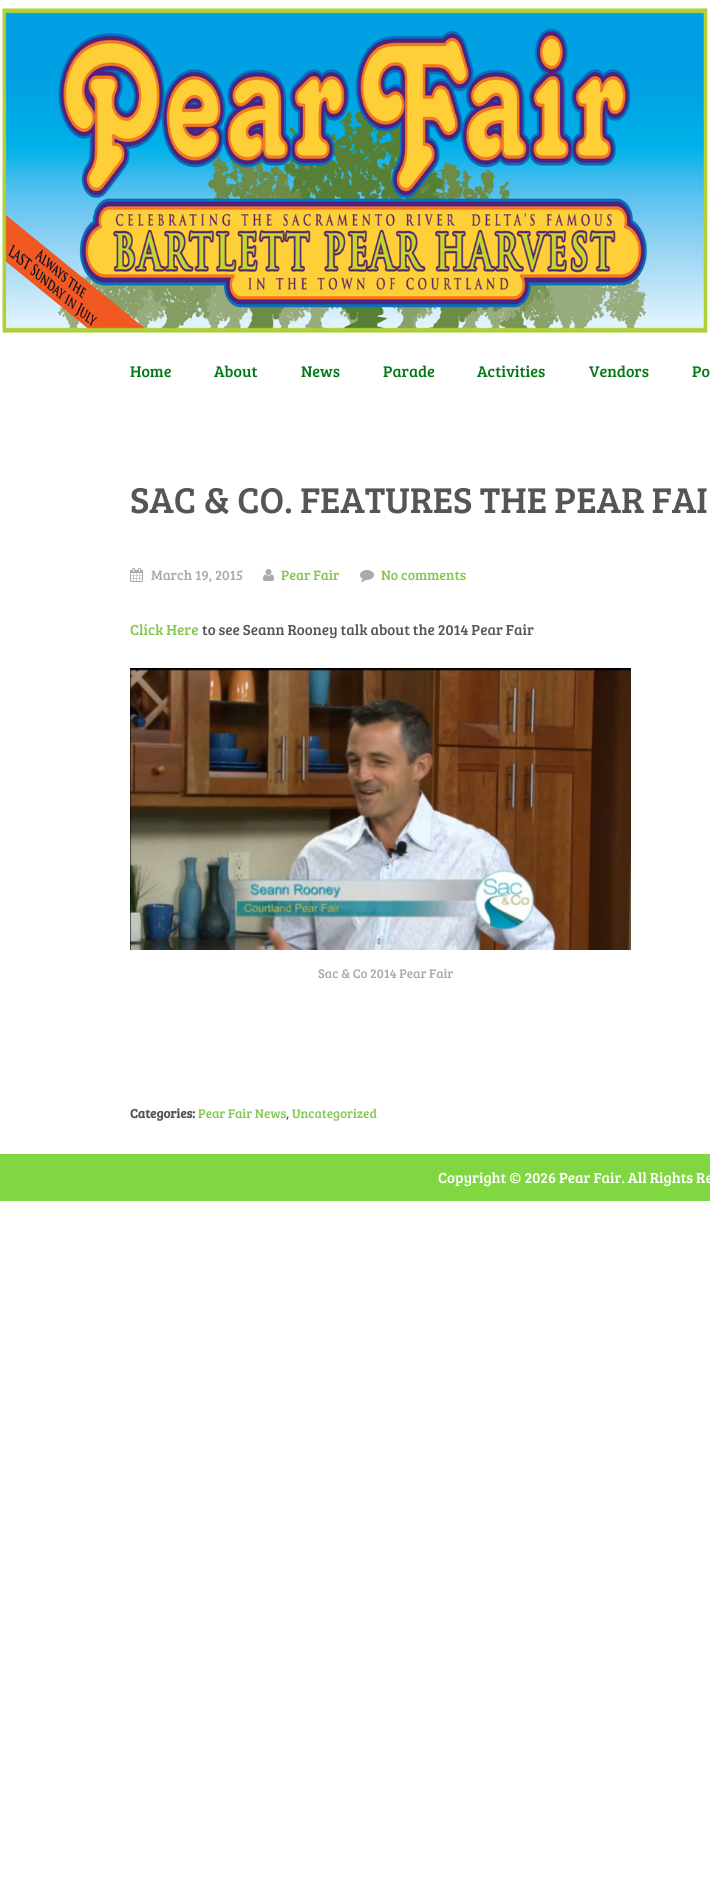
#include <cairo/cairo.h>
#include <math.h>
#include <stddef.h>

static cairo_t *cr;

static void use_color(int r, int g, int b) {
  cairo_set_source_rgb(cr, r / 255.0, g / 255.0, b / 255.0);
}

static void text(double x, double y, const char *s, const char *family, double size, int italic, int bold, int r, int g, int b) {
  cairo_select_font_face(cr, family, italic ? CAIRO_FONT_SLANT_ITALIC : CAIRO_FONT_SLANT_NORMAL,
    bold ? CAIRO_FONT_WEIGHT_BOLD : CAIRO_FONT_WEIGHT_NORMAL);
  cairo_set_font_size(cr, size);
  use_color(r, g, b);
  cairo_move_to(cr, x, y);
  cairo_show_text(cr, s);
}

static void box(double x, double y, double w, double h, int r, int g, int b) {
  use_color(r, g, b);
  cairo_rectangle(cr, x, y, w, h);
  cairo_fill(cr);
}

static void picture(const char *path, double x, double y, double w, double h) {
  cairo_surface_t *image = cairo_image_surface_create_from_png(path);
  cairo_save(cr);
  cairo_set_source_surface(cr, image, x, y);
  cairo_rectangle(cr, x, y, w, h);
  cairo_fill(cr);
  cairo_restore(cr);
  cairo_surface_destroy(image);
}

static void draw(void) {
  use_color(255, 255, 255);
  cairo_paint(cr);
  picture("img_01.png", 2, 8, 706, 326);
  picture("img_02.png", 130, 568, 13, 14);
  picture("img_03.png", 263, 569, 11, 12);
  picture("img_04.png", 360, 570, 14, 12);
  picture("img_05.png", 130, 668, 501, 282);
  box(0, 1154, 710, 47, 129, 215, 66);
  text(130, 377, "Home", "Bree Serif", 16, 0, 0, 4, 122, 22);
  text(214, 377, "About", "Bree Serif", 16, 0, 0, 4, 122, 22);
  text(301, 377, "News", "Bree Serif", 16, 0, 0, 4, 122, 22);
  text(383, 377, "Parade", "Bree Serif", 16, 0, 0, 4, 122, 22);
  text(477, 377, "Activities", "Bree Serif", 16, 0, 0, 4, 122, 22);
  text(589, 377, "Vendors", "Bree Serif", 16, 0, 0, 4, 122, 22);
  text(692, 377, "Po", "Bree Serif", 16, 0, 0, 4, 122, 22);
  text(130, 513, "SAC & CO. FEATURES THE PEAR FAI", "Bree Serif", 37, 0, 0, 85, 85, 85);
  text(151, 580, "March 19, 2015", "Bree Serif", 14, 0, 0, 170, 170, 170);
  text(281, 580, "Pear Fair", "Bree Serif", 14, 0, 0, 131, 199, 79);
  text(381, 580, "No comments", "Bree Serif", 14, 0, 0, 131, 199, 79);
  text(130, 635, "Click Here", "Bree Serif", 15, 0, 0, 131, 199, 79);
  text(202, 635, "to see Seann Rooney talk about the 2014 Pear Fair", "Bree Serif", 15, 0, 0, 85, 85, 85);
  text(318, 978, "Sac & Co 2014 Pear Fair", "Bree Serif", 13, 0, 0, 170, 170, 170);
  text(130, 1118, "Categories:", "Bree Serif", 13, 0, 1, 85, 85, 85);
  text(198, 1118, "Pear Fair News", "Bree Serif", 13, 0, 0, 131, 199, 79);
  text(286, 1118, ",", "Bree Serif", 13, 0, 0, 85, 85, 85);
  text(292, 1118, "Uncategorized", "Bree Serif", 13, 0, 0, 131, 199, 79);
  text(438, 1183, "Copyright © 2026 Pear Fair. All Rights Re", "Bree Serif", 15, 0, 0, 255, 255, 255);
}

int main(void) {
  cairo_surface_t *surface = cairo_image_surface_create(CAIRO_FORMAT_RGB24, 710, 1900);
  cr = cairo_create(surface);
  cairo_font_options_t *options = cairo_font_options_create();
  cairo_font_options_set_hint_metrics(options, CAIRO_HINT_METRICS_OFF);
  cairo_font_options_set_hint_style(options, CAIRO_HINT_STYLE_NONE);
  cairo_set_font_options(cr, options);
  cairo_set_miter_limit(cr, 4);
  draw();
  cairo_surface_write_to_png(surface, "out.png");
  cairo_font_options_destroy(options);
  cairo_destroy(cr);
  cairo_surface_destroy(surface);
  return 0;
}
